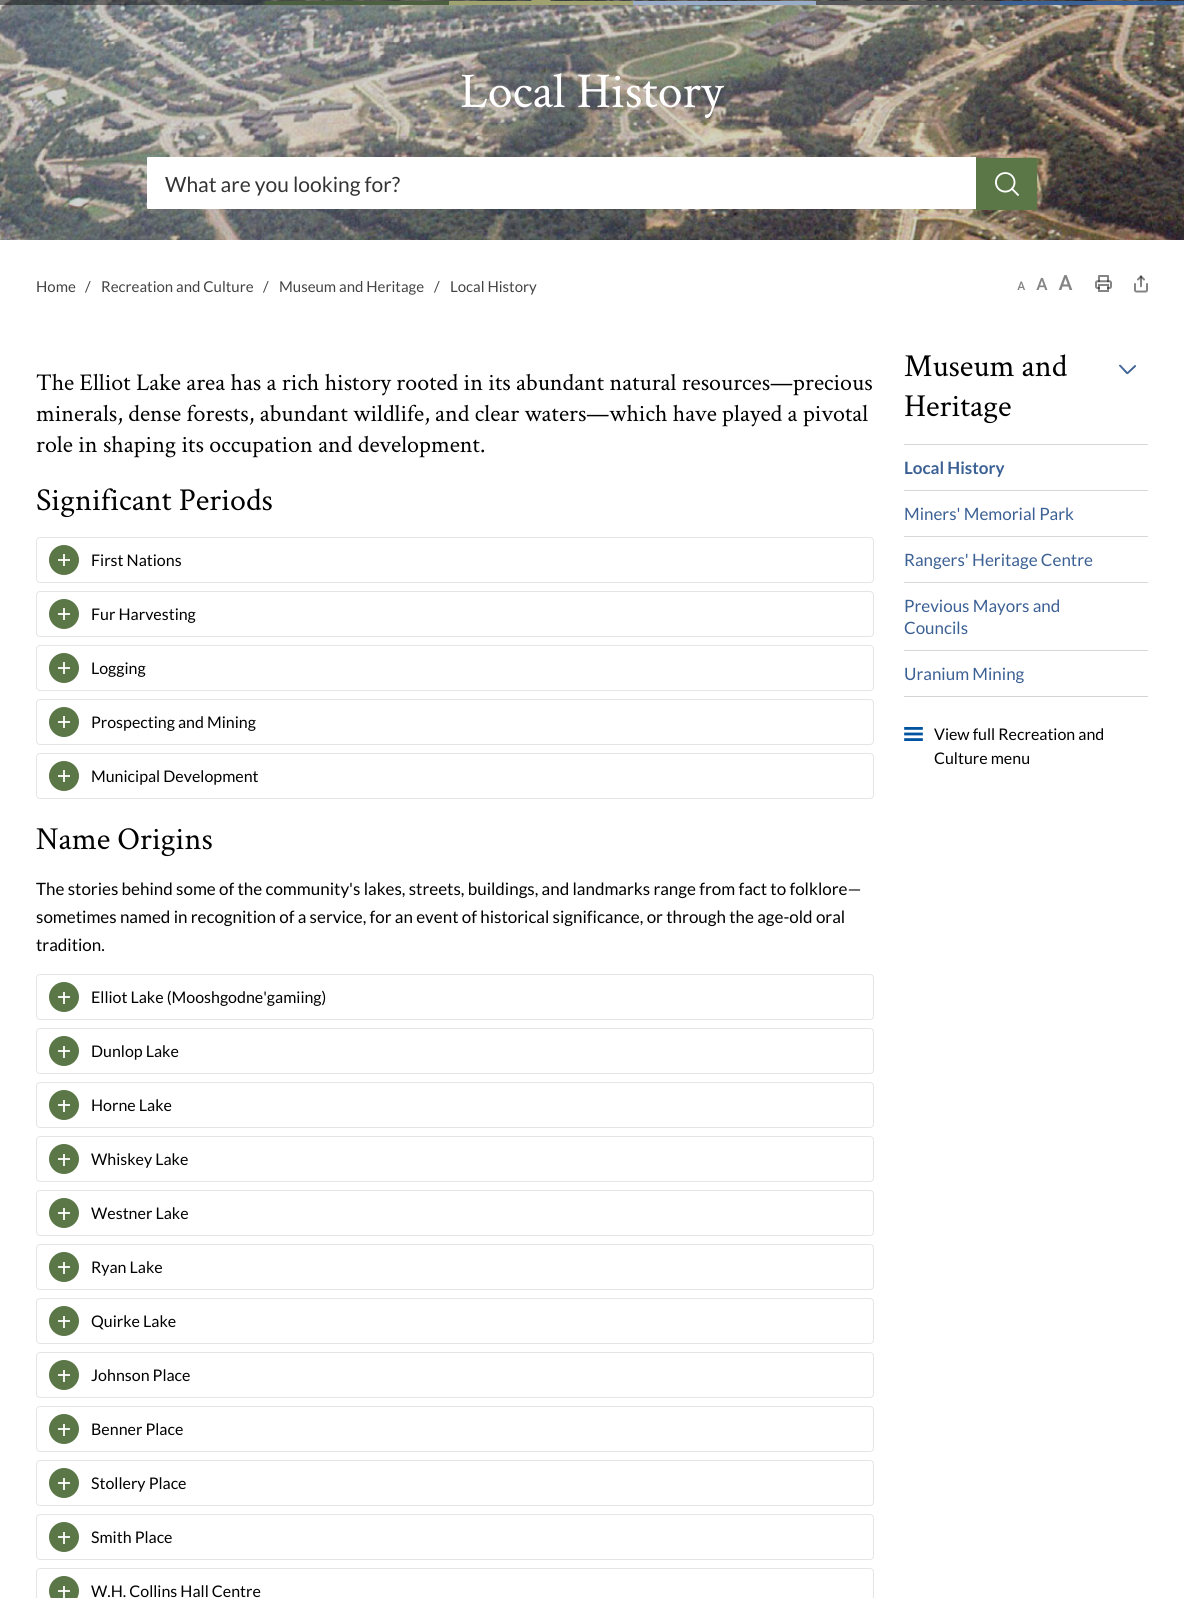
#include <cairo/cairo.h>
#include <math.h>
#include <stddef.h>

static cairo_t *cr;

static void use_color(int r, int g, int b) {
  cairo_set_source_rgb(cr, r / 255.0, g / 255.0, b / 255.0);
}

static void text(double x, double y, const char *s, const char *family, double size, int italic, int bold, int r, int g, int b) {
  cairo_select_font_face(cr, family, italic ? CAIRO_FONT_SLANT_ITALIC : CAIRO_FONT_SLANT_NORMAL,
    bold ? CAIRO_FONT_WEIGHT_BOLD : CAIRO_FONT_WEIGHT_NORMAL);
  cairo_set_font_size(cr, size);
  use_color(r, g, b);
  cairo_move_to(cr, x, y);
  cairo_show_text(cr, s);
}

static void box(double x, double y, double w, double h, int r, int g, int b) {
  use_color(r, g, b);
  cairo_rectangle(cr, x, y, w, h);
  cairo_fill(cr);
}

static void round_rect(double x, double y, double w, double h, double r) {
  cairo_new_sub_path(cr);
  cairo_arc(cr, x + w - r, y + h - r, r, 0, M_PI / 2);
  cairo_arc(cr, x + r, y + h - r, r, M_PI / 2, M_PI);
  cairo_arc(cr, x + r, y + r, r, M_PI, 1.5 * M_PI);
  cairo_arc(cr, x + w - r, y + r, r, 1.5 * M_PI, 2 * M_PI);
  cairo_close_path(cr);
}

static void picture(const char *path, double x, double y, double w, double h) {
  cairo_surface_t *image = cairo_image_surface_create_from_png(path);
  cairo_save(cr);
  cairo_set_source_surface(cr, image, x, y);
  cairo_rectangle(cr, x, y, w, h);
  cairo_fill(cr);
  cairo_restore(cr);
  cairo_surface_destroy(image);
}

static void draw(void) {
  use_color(255, 255, 255);
  cairo_paint(cr);
  picture("img_01.png", 0, 0, 1184, 240);
  cairo_set_source_rgba(cr, 0, 0, 0, 0.54);
  cairo_rectangle(cr, 0, 0, 1184, 5);
  cairo_fill(cr);
  box(265, 1, 184, 4, 76, 96, 63);
  box(449, 1, 184, 4, 160, 162, 111);
  cairo_new_path(cr);
  cairo_move_to(cr, 551, 1);
  cairo_line_to(cr, 531, 1);
  cairo_line_to(cr, 541, -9);
  cairo_close_path(cr);
  cairo_fill(cr);
  box(633, 1, 183, 4, 154, 173, 200);
  box(816, 1, 184, 4, 88, 89, 91);
  box(1000, 1, 184, 4, 59, 96, 148);
  use_color(255, 255, 255);
  cairo_new_path(cr);
  cairo_move_to(cr, 148, 157);
  cairo_line_to(cr, 976, 157);
  cairo_line_to(cr, 976, 209);
  cairo_line_to(cr, 148, 209);
  cairo_curve_to(cr, 147.5, 209, 147, 208.5, 147, 208);
  cairo_line_to(cr, 147, 158);
  cairo_curve_to(cr, 147, 157.5, 147.5, 157, 148, 157);
  cairo_close_path(cr);
  cairo_fill(cr);
  use_color(91, 119, 72);
  cairo_new_path(cr);
  cairo_move_to(cr, 976, 158);
  cairo_line_to(cr, 1036, 158);
  cairo_curve_to(cr, 1036.5, 158, 1037, 158.5, 1037, 159);
  cairo_line_to(cr, 1037, 209);
  cairo_curve_to(cr, 1037, 209.5, 1036.5, 210, 1036, 210);
  cairo_line_to(cr, 976, 210);
  cairo_close_path(cr);
  cairo_fill(cr);
  picture("img_02.png", 995, 172, 24, 24);
  picture("img_03.png", 1017, 281, 8, 9);
  picture("img_04.png", 1036, 277, 12, 13);
  picture("img_05.png", 1058, 275, 15, 15);
  picture("img_06.png", 1095, 275, 17, 17);
  picture("img_07.png", 1134, 275, 14, 18);
  round_rect(36.5, 537.5, 837, 45, 3.5);
  use_color(229, 229, 229);
  cairo_set_line_width(cr, 1);
  cairo_stroke(cr);
  use_color(91, 119, 72);
  cairo_arc(cr, 64, 560, 15, 0, 2 * M_PI);
  cairo_fill(cr);
  box(58, 559, 12, 2, 239, 241, 237);
  box(63, 554, 2, 12, 239, 241, 237);
  box(63, 559, 2, 2, 253, 254, 253);
  round_rect(36.5, 591.5, 837, 45, 3.5);
  use_color(229, 229, 229);
  cairo_stroke(cr);
  use_color(91, 119, 72);
  cairo_arc(cr, 64, 614, 15, 0, 2 * M_PI);
  cairo_fill(cr);
  box(58, 613, 12, 2, 239, 241, 237);
  box(63, 608, 2, 12, 239, 241, 237);
  box(63, 613, 2, 2, 253, 254, 253);
  round_rect(36.5, 645.5, 837, 45, 3.5);
  use_color(229, 229, 229);
  cairo_stroke(cr);
  use_color(91, 119, 72);
  cairo_arc(cr, 64, 668, 15, 0, 2 * M_PI);
  cairo_fill(cr);
  box(58, 667, 12, 2, 239, 241, 237);
  box(63, 662, 2, 12, 239, 241, 237);
  box(63, 667, 2, 2, 253, 254, 253);
  round_rect(36.5, 699.5, 837, 45, 3.5);
  use_color(229, 229, 229);
  cairo_stroke(cr);
  use_color(91, 119, 72);
  cairo_arc(cr, 64, 722, 15, 0, 2 * M_PI);
  cairo_fill(cr);
  box(58, 721, 12, 2, 239, 241, 237);
  box(63, 716, 2, 12, 239, 241, 237);
  box(63, 721, 2, 2, 253, 254, 253);
  round_rect(36.5, 753.5, 837, 45, 3.5);
  use_color(229, 229, 229);
  cairo_stroke(cr);
  use_color(91, 119, 72);
  cairo_arc(cr, 64, 776, 15, 0, 2 * M_PI);
  cairo_fill(cr);
  box(58, 775, 12, 2, 239, 241, 237);
  box(63, 770, 2, 12, 239, 241, 237);
  box(63, 775, 2, 2, 253, 254, 253);
  round_rect(36.5, 974.5, 837, 45, 3.5);
  use_color(229, 229, 229);
  cairo_stroke(cr);
  use_color(91, 119, 72);
  cairo_arc(cr, 64, 997, 15, 0, 2 * M_PI);
  cairo_fill(cr);
  box(58, 996, 12, 2, 239, 241, 237);
  box(63, 992, 2, 12, 239, 241, 237);
  box(63, 996, 2, 2, 253, 254, 253);
  round_rect(36.5, 1028.5, 837, 45, 3.5);
  use_color(229, 229, 229);
  cairo_stroke(cr);
  use_color(91, 119, 72);
  cairo_arc(cr, 64, 1051, 15, 0, 2 * M_PI);
  cairo_fill(cr);
  box(58, 1050, 12, 2, 239, 241, 237);
  box(63, 1046, 2, 12, 239, 241, 237);
  box(63, 1050, 2, 2, 253, 254, 253);
  round_rect(36.5, 1082.5, 837, 45, 3.5);
  use_color(229, 229, 229);
  cairo_stroke(cr);
  use_color(91, 119, 72);
  cairo_arc(cr, 64, 1105, 15, 0, 2 * M_PI);
  cairo_fill(cr);
  box(58, 1104, 12, 2, 239, 241, 237);
  box(63, 1100, 2, 12, 239, 241, 237);
  box(63, 1104, 2, 2, 253, 254, 253);
  round_rect(36.5, 1136.5, 837, 45, 3.5);
  use_color(229, 229, 229);
  cairo_stroke(cr);
  use_color(91, 119, 72);
  cairo_arc(cr, 64, 1159, 15, 0, 2 * M_PI);
  cairo_fill(cr);
  box(58, 1158, 12, 2, 239, 241, 237);
  box(63, 1154, 2, 12, 239, 241, 237);
  box(63, 1158, 2, 2, 253, 254, 253);
  round_rect(36.5, 1190.5, 837, 45, 3.5);
  use_color(229, 229, 229);
  cairo_stroke(cr);
  use_color(91, 119, 72);
  cairo_arc(cr, 64, 1213, 15, 0, 2 * M_PI);
  cairo_fill(cr);
  box(58, 1212, 12, 2, 239, 241, 237);
  box(63, 1208, 2, 12, 239, 241, 237);
  box(63, 1212, 2, 2, 253, 254, 253);
  round_rect(36.5, 1244.5, 837, 45, 3.5);
  use_color(229, 229, 229);
  cairo_stroke(cr);
  use_color(91, 119, 72);
  cairo_arc(cr, 64, 1267, 15, 0, 2 * M_PI);
  cairo_fill(cr);
  box(58, 1266, 12, 2, 239, 241, 237);
  box(63, 1262, 2, 12, 239, 241, 237);
  box(63, 1266, 2, 2, 253, 254, 253);
  round_rect(36.5, 1298.5, 837, 45, 3.5);
  use_color(229, 229, 229);
  cairo_stroke(cr);
  use_color(91, 119, 72);
  cairo_arc(cr, 64, 1321, 15, 0, 2 * M_PI);
  cairo_fill(cr);
  box(58, 1320, 12, 2, 239, 241, 237);
  box(63, 1316, 2, 12, 239, 241, 237);
  box(63, 1320, 2, 2, 253, 254, 253);
  round_rect(36.5, 1352.5, 837, 45, 3.5);
  use_color(229, 229, 229);
  cairo_stroke(cr);
  use_color(91, 119, 72);
  cairo_arc(cr, 64, 1375, 15, 0, 2 * M_PI);
  cairo_fill(cr);
  box(58, 1374, 12, 2, 239, 241, 237);
  box(63, 1370, 2, 12, 239, 241, 237);
  box(63, 1374, 2, 2, 253, 254, 253);
  round_rect(36.5, 1406.5, 837, 45, 3.5);
  use_color(229, 229, 229);
  cairo_stroke(cr);
  use_color(91, 119, 72);
  cairo_arc(cr, 64, 1429, 15, 0, 2 * M_PI);
  cairo_fill(cr);
  box(58, 1428, 12, 2, 239, 241, 237);
  box(63, 1424, 2, 12, 239, 241, 237);
  box(63, 1428, 2, 2, 253, 254, 253);
  round_rect(36.5, 1460.5, 837, 45, 3.5);
  use_color(229, 229, 229);
  cairo_stroke(cr);
  use_color(91, 119, 72);
  cairo_arc(cr, 64, 1483, 15, 0, 2 * M_PI);
  cairo_fill(cr);
  box(58, 1482, 12, 2, 239, 241, 237);
  box(63, 1478, 2, 12, 239, 241, 237);
  box(63, 1482, 2, 2, 253, 254, 253);
  round_rect(36.5, 1514.5, 837, 45, 3.5);
  use_color(229, 229, 229);
  cairo_stroke(cr);
  use_color(91, 119, 72);
  cairo_arc(cr, 64, 1537, 15, 0, 2 * M_PI);
  cairo_fill(cr);
  box(58, 1536, 12, 2, 239, 241, 237);
  box(63, 1532, 2, 12, 239, 241, 237);
  box(63, 1536, 2, 2, 253, 254, 253);
  round_rect(36.5, 1568.5, 837, 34, 3.5);
  use_color(229, 229, 229);
  cairo_stroke(cr);
  use_color(91, 119, 72);
  cairo_arc(cr, 64, 1591, 15, 0, 2 * M_PI);
  cairo_fill(cr);
  box(58, 1590, 12, 2, 239, 241, 237);
  box(63, 1586, 2, 12, 239, 241, 237);
  box(63, 1590, 2, 2, 253, 254, 253);
  box(904, 696, 244, 1, 212, 212, 212);
  picture("img_08.png", 1119, 364, 17, 11);
  box(904, 444, 244, 1, 216, 216, 216);
  box(904, 490, 244, 1, 216, 216, 216);
  box(904, 536, 244, 1, 216, 216, 216);
  box(904, 582, 244, 1, 216, 216, 216);
  box(904, 650, 244, 1, 216, 216, 216);
  picture("img_09.png", 904, 727, 19, 14);
  text(460, 107, "Local History", "Crimson Text", 50, 0, 0, 255, 255, 255);
  text(165, 192, "What are you looking for?", "Lato", 21, 0, 0, 52, 52, 52);
  text(36, 292, "Home", "Lato", 15, 0, 0, 67, 67, 67);
  text(85, 292, "/", "Lato", 15, 0, 0, 67, 67, 67);
  text(101, 292, "Recreation and Culture", "Lato", 15, 0, 0, 67, 67, 67);
  text(263, 292, "/", "Lato", 15, 0, 0, 67, 67, 67);
  text(279, 292, "Museum and Heritage", "Lato", 15, 0, 0, 67, 67, 67);
  text(434, 292, "/", "Lato", 15, 0, 0, 67, 67, 67);
  text(450, 292, "Local History", "Lato", 15, 0, 0, 67, 67, 67);
  text(36, 390, "The Elliot Lake area has a rich history rooted in its abundant natural resources—precious", "Crimson Text", 24, 0, 0, 0, 0, 0);
  text(36, 421, "minerals, dense forests, abundant wildlife, and clear waters—which have played a pivotal", "Crimson Text", 24, 0, 0, 0, 0, 0);
  text(36, 452, "role in shaping its occupation and development.", "Crimson Text", 24, 0, 0, 0, 0, 0);
  text(36, 510, "Significant Periods", "Crimson Text", 32, 0, 0, 0, 0, 0);
  text(91, 566, "First Nations", "Lato", 16, 0, 0, 0, 0, 0);
  text(91, 620, "Fur Harvesting", "Lato", 16, 0, 0, 0, 0, 0);
  text(91, 674, "Logging", "Lato", 16, 0, 0, 0, 0, 0);
  text(91, 728, "Prospecting and Mining", "Lato", 16, 0, 0, 0, 0, 0);
  text(91, 782, "Municipal Development", "Lato", 16, 0, 0, 0, 0, 0);
  text(36, 849, "Name Origins", "Crimson Text", 32, 0, 0, 0, 0, 0);
  text(36, 895, "The stories behind some of the community's lakes, streets, buildings, and landmarks range from fact to folklore—", "Lato", 17, 0, 0, 0, 0, 0);
  text(36, 923, "sometimes named in recognition of a service, for an event of historical significance, or through the age-old oral", "Lato", 17, 0, 0, 0, 0, 0);
  text(36, 951, "tradition.", "Lato", 17, 0, 0, 0, 0, 0);
  text(91, 1003, "Elliot Lake (Mooshgodne'gamiing)", "Lato", 16, 0, 0, 0, 0, 0);
  text(91, 1057, "Dunlop Lake", "Lato", 16, 0, 0, 0, 0, 0);
  text(91, 1111, "Horne Lake", "Lato", 16, 0, 0, 0, 0, 0);
  text(91, 1165, "Whiskey Lake", "Lato", 16, 0, 0, 0, 0, 0);
  text(91, 1219, "Westner Lake", "Lato", 16, 0, 0, 0, 0, 0);
  text(91, 1273, "Ryan Lake", "Lato", 16, 0, 0, 0, 0, 0);
  text(91, 1327, "Quirke Lake", "Lato", 16, 0, 0, 0, 0, 0);
  text(91, 1381, "Johnson Place", "Lato", 16, 0, 0, 0, 0, 0);
  text(91, 1435, "Benner Place", "Lato", 16, 0, 0, 0, 0, 0);
  text(91, 1489, "Stollery Place", "Lato", 16, 0, 0, 0, 0, 0);
  text(91, 1543, "Smith Place", "Lato", 16, 0, 0, 0, 0, 0);
  text(91, 1597, "W.H. Collins Hall Centre", "Lato", 16, 0, 0, 0, 0, 0);
  text(904, 376, "Museum and", "Crimson Text", 32, 0, 0, 0, 0, 0);
  text(904, 416, "Heritage", "Crimson Text", 32, 0, 0, 0, 0, 0);
  text(904, 474, "Local History", "Lato", 17, 0, 1, 59, 96, 148);
  text(904, 520, "Miners' Memorial Park", "Lato", 17, 0, 0, 59, 96, 148);
  text(904, 566, "Rangers' Heritage Centre", "Lato", 17, 0, 0, 59, 96, 148);
  text(904, 612, "Previous Mayors and", "Lato", 17, 0, 0, 59, 96, 148);
  text(904, 634, "Councils", "Lato", 17, 0, 0, 59, 96, 148);
  text(904, 680, "Uranium Mining", "Lato", 17, 0, 0, 59, 96, 148);
  text(934, 740, "View full Recreation and", "Lato", 16, 0, 0, 0, 0, 0);
  text(934, 764, "Culture menu", "Lato", 16, 0, 0, 0, 0, 0);
}

int main(void) {
  cairo_surface_t *surface = cairo_image_surface_create(CAIRO_FORMAT_RGB24, 1184, 1598);
  cr = cairo_create(surface);
  cairo_font_options_t *options = cairo_font_options_create();
  cairo_font_options_set_hint_metrics(options, CAIRO_HINT_METRICS_OFF);
  cairo_font_options_set_hint_style(options, CAIRO_HINT_STYLE_NONE);
  cairo_set_font_options(cr, options);
  cairo_set_miter_limit(cr, 4);
  draw();
  cairo_surface_write_to_png(surface, "out.png");
  cairo_font_options_destroy(options);
  cairo_destroy(cr);
  cairo_surface_destroy(surface);
  return 0;
}
